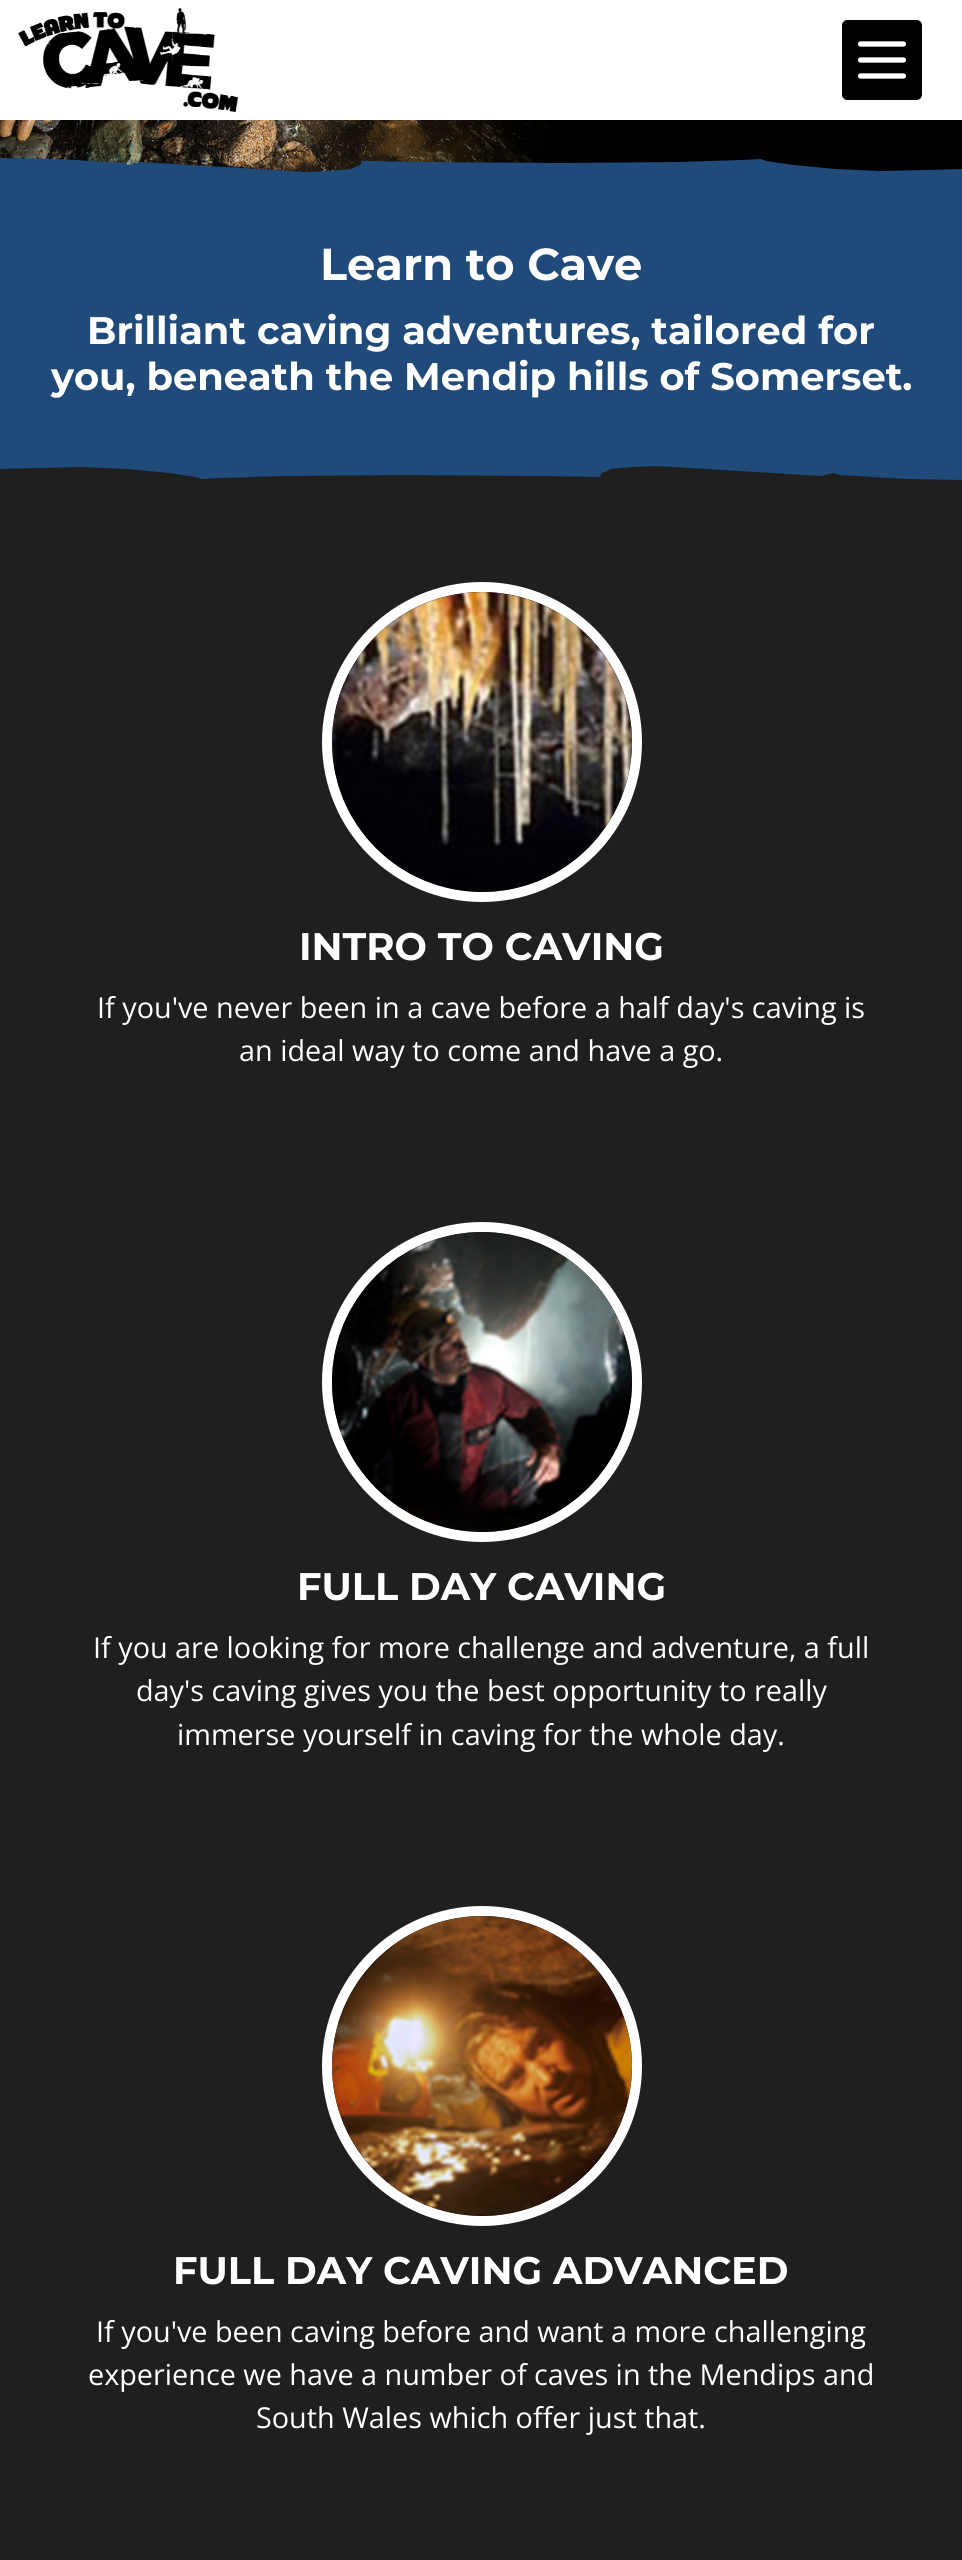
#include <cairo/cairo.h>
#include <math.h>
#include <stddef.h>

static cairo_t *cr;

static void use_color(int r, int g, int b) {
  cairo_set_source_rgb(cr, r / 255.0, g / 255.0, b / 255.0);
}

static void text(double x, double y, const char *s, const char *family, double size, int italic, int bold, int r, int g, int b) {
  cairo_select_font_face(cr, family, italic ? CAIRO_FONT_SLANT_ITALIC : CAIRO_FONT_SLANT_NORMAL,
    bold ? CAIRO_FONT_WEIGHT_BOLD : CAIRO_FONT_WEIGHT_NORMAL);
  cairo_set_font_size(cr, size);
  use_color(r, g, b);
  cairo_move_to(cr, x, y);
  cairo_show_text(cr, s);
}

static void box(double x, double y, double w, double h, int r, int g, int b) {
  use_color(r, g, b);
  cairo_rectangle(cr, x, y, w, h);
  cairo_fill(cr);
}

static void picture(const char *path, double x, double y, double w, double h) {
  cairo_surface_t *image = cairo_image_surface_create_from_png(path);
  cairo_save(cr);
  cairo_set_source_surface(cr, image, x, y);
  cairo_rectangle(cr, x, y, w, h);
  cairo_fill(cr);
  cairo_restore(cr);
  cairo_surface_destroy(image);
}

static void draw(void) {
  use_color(31, 31, 31);
  cairo_paint(cr);
  box(0, 0, 962, 120, 255, 255, 255);
  picture("img_01.png", 18, 8, 220, 104);
  picture("img_02.png", 842, 20, 80, 80);
  picture("img_03.png", 0, 120, 962, 52);
  box(0, 176, 962, 286, 32, 74, 121);
  use_color(31, 74, 121);
  cairo_new_path(cr);
  cairo_move_to(cr, 0, 176);
  cairo_line_to(cr, 962, 176);
  cairo_line_to(cr, 962, 169);
  cairo_line_to(cr, 881, 171);
  cairo_line_to(cr, 835, 169);
  cairo_line_to(cr, 793, 165);
  cairo_line_to(cr, 773, 162);
  cairo_line_to(cr, 766, 161);
  cairo_line_to(cr, 761, 159);
  cairo_line_to(cr, 741, 160);
  cairo_line_to(cr, 677, 162);
  cairo_line_to(cr, 559, 163);
  cairo_line_to(cr, 423, 162);
  cairo_line_to(cr, 363, 161);
  cairo_line_to(cr, 362, 160);
  cairo_line_to(cr, 361, 164);
  cairo_line_to(cr, 360, 165);
  cairo_line_to(cr, 355, 167);
  cairo_line_to(cr, 351, 169);
  cairo_line_to(cr, 330, 171);
  cairo_line_to(cr, 306, 172);
  cairo_line_to(cr, 141, 162);
  cairo_line_to(cr, 129, 165);
  cairo_line_to(cr, 122, 163);
  cairo_line_to(cr, 105, 162);
  cairo_line_to(cr, 75, 160);
  cairo_line_to(cr, 52, 159);
  cairo_line_to(cr, 0, 158);
  cairo_close_path(cr);
  cairo_fill(cr);
  cairo_new_path(cr);
  cairo_move_to(cr, 962, 462);
  cairo_line_to(cr, 0, 462);
  cairo_line_to(cr, 0, 469);
  cairo_line_to(cr, 81, 467);
  cairo_line_to(cr, 127, 469);
  cairo_line_to(cr, 169, 473);
  cairo_line_to(cr, 189, 476);
  cairo_line_to(cr, 196, 477);
  cairo_line_to(cr, 201, 479);
  cairo_line_to(cr, 221, 478);
  cairo_line_to(cr, 285, 476);
  cairo_line_to(cr, 403, 475);
  cairo_line_to(cr, 539, 476);
  cairo_line_to(cr, 599, 477);
  cairo_line_to(cr, 600, 478);
  cairo_line_to(cr, 601, 474);
  cairo_line_to(cr, 602, 473);
  cairo_line_to(cr, 607, 471);
  cairo_line_to(cr, 611, 469);
  cairo_line_to(cr, 632, 467);
  cairo_line_to(cr, 656, 466);
  cairo_line_to(cr, 821, 476);
  cairo_line_to(cr, 833, 473);
  cairo_line_to(cr, 840, 475);
  cairo_line_to(cr, 857, 476);
  cairo_line_to(cr, 887, 478);
  cairo_line_to(cr, 910, 479);
  cairo_line_to(cr, 962, 480);
  cairo_close_path(cr);
  cairo_fill(cr);
  cairo_arc(cr, 482, 742, 155, 0, 2 * M_PI);
  use_color(255, 255, 255);
  cairo_set_line_width(cr, 10);
  cairo_stroke(cr);
  picture("img_04.png", 332, 592, 300, 300);
  cairo_arc(cr, 482, 1382, 155, 0, 2 * M_PI);
  cairo_stroke(cr);
  picture("img_05.png", 332, 1232, 300, 300);
  cairo_arc(cr, 482, 2066, 155, 0, 2 * M_PI);
  cairo_stroke(cr);
  picture("img_06.png", 332, 1916, 300, 300);
  text(320, 280, "Learn to Cave", "Montserrat", 44.75, 0, 1, 255, 255, 255);
  text(87, 344, "Brilliant caving adventures, tailored for", "Montserrat", 38.4, 0, 1, 255, 255, 255);
  text(51, 390, "you, beneath the Mendip hills of Somerset.", "Montserrat", 38.4, 0, 1, 255, 255, 255);
  text(299, 960, "INTRO TO CAVING", "Montserrat", 38.4, 0, 1, 255, 255, 255);
  text(97, 1018, "If you've never been in a cave before a half day's caving is", "Open Sans", 28.8, 0, 0, 255, 255, 255);
  text(239, 1061, "an ideal way to come and have a go.", "Open Sans", 28.8, 0, 0, 255, 255, 255);
  text(297, 1600, "FULL DAY CAVING", "Montserrat", 38.4, 0, 1, 255, 255, 255);
  text(93, 1658, "If you are looking for more challenge and adventure, a full", "Open Sans", 28.8, 0, 0, 255, 255, 255);
  text(136, 1701, "day's caving gives you the best opportunity to really", "Open Sans", 28.8, 0, 0, 255, 255, 255);
  text(177, 1745, "immerse yourself in caving for the whole day.", "Open Sans", 28.8, 0, 0, 255, 255, 255);
  text(173, 2284, "FULL DAY CAVING ADVANCED", "Montserrat", 38.4, 0, 1, 255, 255, 255);
  text(96, 2342, "If you've been caving before and want a more challenging", "Open Sans", 28.8, 0, 0, 255, 255, 255);
  text(88, 2385, "experience we have a number of caves in the Mendips and", "Open Sans", 28.8, 0, 0, 255, 255, 255);
  text(256, 2428, "South Wales which offer just that.", "Open Sans", 28.8, 0, 0, 255, 255, 255);
}

int main(void) {
  cairo_surface_t *surface = cairo_image_surface_create(CAIRO_FORMAT_RGB24, 962, 2560);
  cr = cairo_create(surface);
  cairo_font_options_t *options = cairo_font_options_create();
  cairo_font_options_set_hint_metrics(options, CAIRO_HINT_METRICS_OFF);
  cairo_font_options_set_hint_style(options, CAIRO_HINT_STYLE_NONE);
  cairo_set_font_options(cr, options);
  cairo_set_miter_limit(cr, 4);
  draw();
  cairo_surface_write_to_png(surface, "out.png");
  cairo_font_options_destroy(options);
  cairo_destroy(cr);
  cairo_surface_destroy(surface);
  return 0;
}
